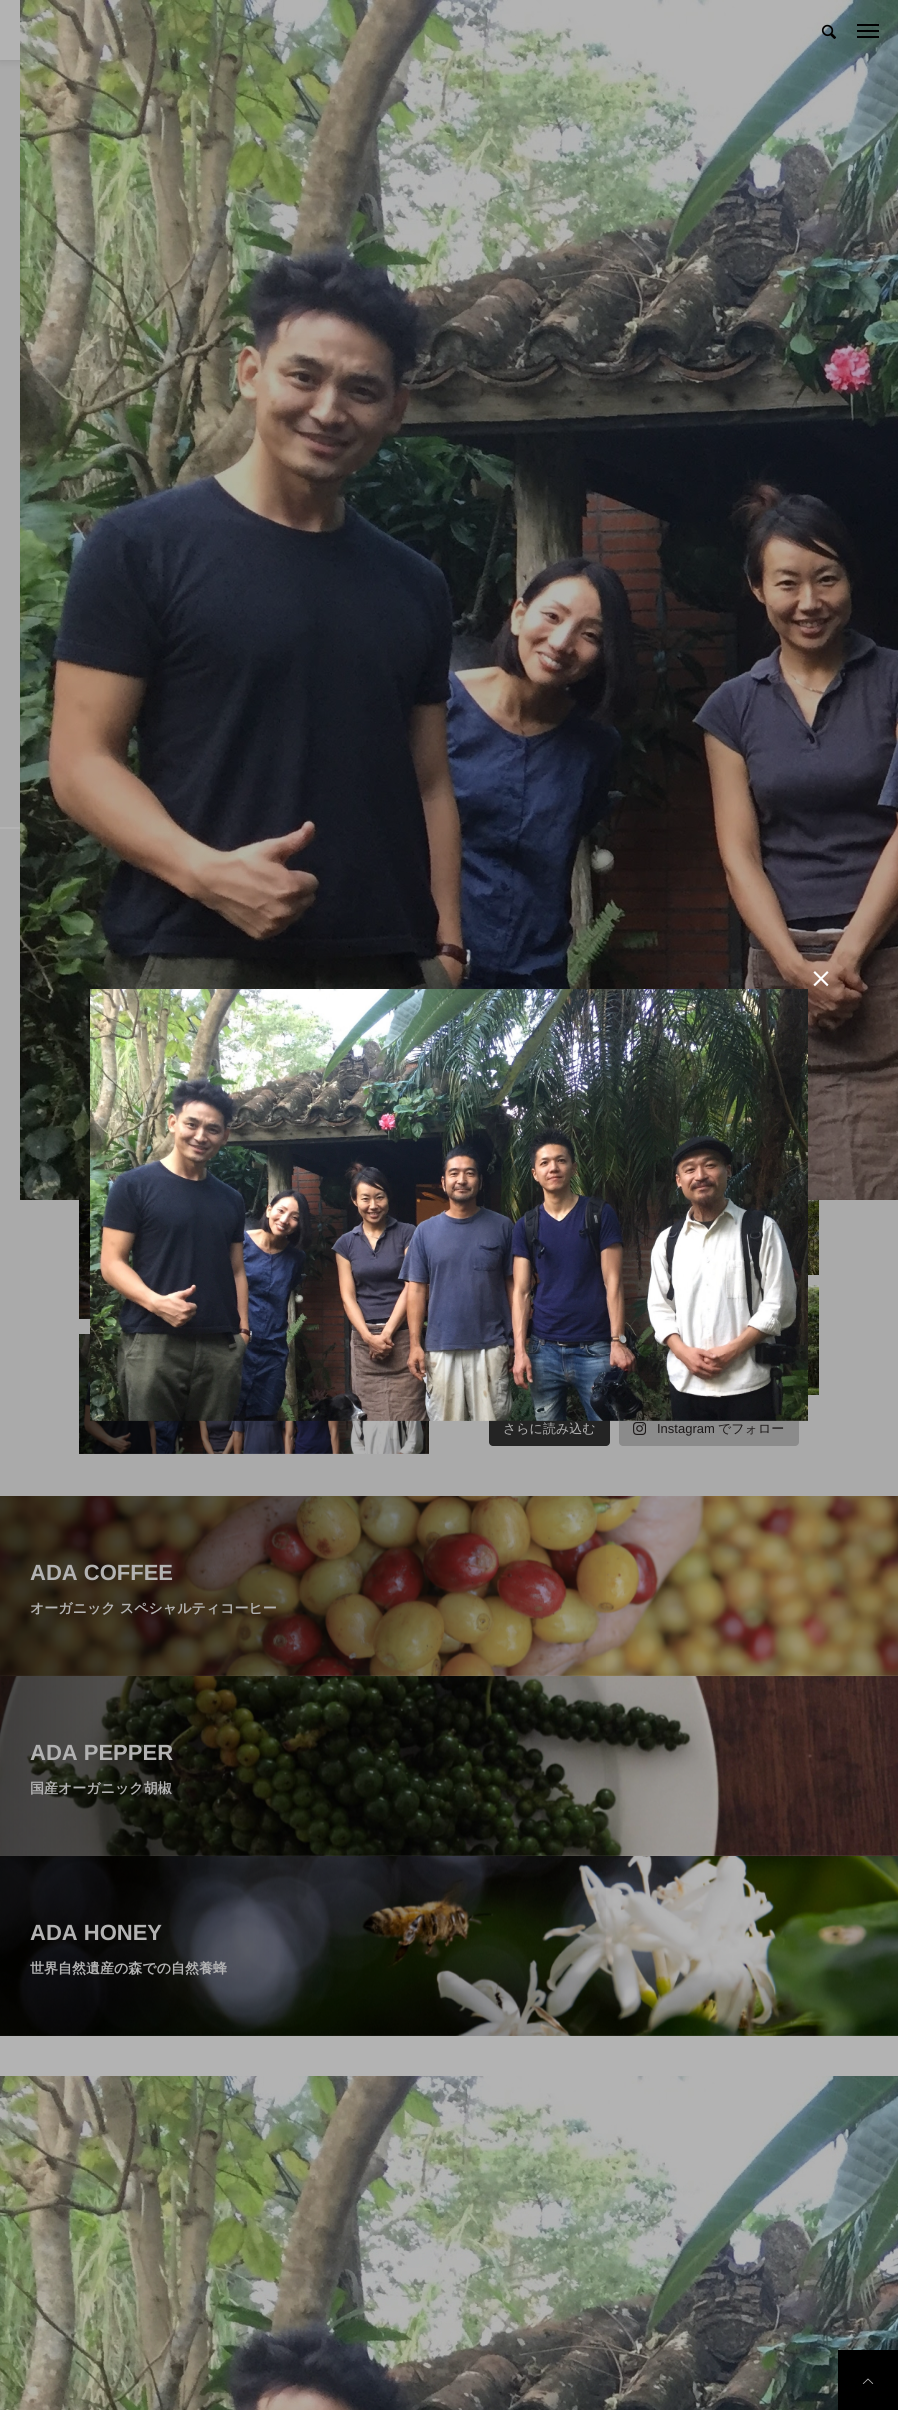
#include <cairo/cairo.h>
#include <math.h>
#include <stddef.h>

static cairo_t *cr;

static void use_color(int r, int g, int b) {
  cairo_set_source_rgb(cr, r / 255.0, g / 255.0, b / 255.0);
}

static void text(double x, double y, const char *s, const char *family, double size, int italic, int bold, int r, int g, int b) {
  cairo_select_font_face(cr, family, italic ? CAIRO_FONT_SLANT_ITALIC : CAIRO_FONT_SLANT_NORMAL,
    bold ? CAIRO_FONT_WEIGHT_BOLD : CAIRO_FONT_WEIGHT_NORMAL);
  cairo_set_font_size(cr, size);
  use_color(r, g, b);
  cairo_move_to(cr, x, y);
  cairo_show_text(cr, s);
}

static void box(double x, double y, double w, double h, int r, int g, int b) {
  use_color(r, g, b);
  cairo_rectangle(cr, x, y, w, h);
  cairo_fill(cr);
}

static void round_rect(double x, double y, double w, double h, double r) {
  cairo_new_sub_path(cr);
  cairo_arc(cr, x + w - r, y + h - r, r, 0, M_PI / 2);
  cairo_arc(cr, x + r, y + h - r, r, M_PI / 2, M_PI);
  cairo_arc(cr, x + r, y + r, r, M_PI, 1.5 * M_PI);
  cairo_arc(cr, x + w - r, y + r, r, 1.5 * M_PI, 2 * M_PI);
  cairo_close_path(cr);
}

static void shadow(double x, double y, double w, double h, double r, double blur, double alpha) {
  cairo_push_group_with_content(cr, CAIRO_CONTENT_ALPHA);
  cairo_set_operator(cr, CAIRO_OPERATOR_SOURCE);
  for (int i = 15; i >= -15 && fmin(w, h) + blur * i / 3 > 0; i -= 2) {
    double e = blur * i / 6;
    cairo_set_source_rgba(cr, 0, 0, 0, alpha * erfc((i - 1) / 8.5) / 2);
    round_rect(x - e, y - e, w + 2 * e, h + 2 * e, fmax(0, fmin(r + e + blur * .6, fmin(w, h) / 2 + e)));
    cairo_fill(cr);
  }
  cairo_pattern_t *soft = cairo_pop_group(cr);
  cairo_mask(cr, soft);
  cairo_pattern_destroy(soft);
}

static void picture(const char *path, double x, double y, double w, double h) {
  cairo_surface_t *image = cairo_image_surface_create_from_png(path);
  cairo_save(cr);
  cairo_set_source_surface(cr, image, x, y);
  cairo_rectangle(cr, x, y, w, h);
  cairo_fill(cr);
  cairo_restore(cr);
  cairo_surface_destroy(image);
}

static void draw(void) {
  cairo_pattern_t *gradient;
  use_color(179, 179, 179);
  cairo_paint(cr);
  box(0, 60, 898, 1436, 170, 170, 170);
  use_color(0, 0, 0);
  shadow(0, 0, 898, 60, 0, 5, 0.15);
  box(0, 0, 20, 60, 179, 179, 179);
  picture("img_01.png", 20, 0, 878, 1200);
  picture("img_02.png", 821, 24, 16, 15);
  box(857, 24, 22, 2, 0, 0, 0);
  box(857, 30, 22, 2, 0, 0, 0);
  box(857, 36, 22, 2, 0, 0, 0);
  picture("img_03.png", 813, 971, 16, 16);
  picture("img_06.png", 79, 1334, 350, 120);
  gradient = cairo_pattern_create_linear(79, 1394, 289, 1394);
  cairo_pattern_add_color_stop_rgba(gradient, 0, 0, 0, 0, 0.7);
  cairo_pattern_add_color_stop_rgba(gradient, 1, 0, 0, 0, 0);
  cairo_set_source(cr, gradient);
  cairo_pattern_destroy(gradient);
  cairo_rectangle(cr, 79, 1334, 204, 120);
  cairo_fill(cr);
  use_color(36, 36, 36);
  round_rect(489, 1412, 121, 34, 4);
  cairo_fill(cr);
  use_color(139, 139, 139);
  round_rect(619, 1412, 180, 34, 4);
  cairo_fill(cr);
  picture("img_04.png", 90, 989, 718, 432);
  box(0, 827, 20, 2, 179, 179, 179);
  picture("img_05.png", 79, 1200, 11, 119);
  gradient = cairo_pattern_create_linear(79, 1259, 289, 1259);
  cairo_pattern_add_color_stop_rgba(gradient, 0, 0, 0, 0, 0.7);
  cairo_pattern_add_color_stop_rgba(gradient, 1, 0, 0, 0, 0);
  cairo_set_source(cr, gradient);
  cairo_pattern_destroy(gradient);
  cairo_rectangle(cr, 79, 1200, 11, 119);
  cairo_fill(cr);
  picture("img_07.png", 808, 1200, 11, 75);
  picture("img_08.png", 808, 1285, 11, 110);
  picture("img_09.png", 633, 1422, 13, 13);
  picture("img_10.png", 0, 1496, 898, 180);
  gradient = cairo_pattern_create_linear(0, 1586, 629, 1586);
  cairo_pattern_add_color_stop_rgba(gradient, 0, 0, 0, 0, 0.6);
  cairo_pattern_add_color_stop_rgba(gradient, 1, 0, 0, 0, 0);
  cairo_set_source(cr, gradient);
  cairo_pattern_destroy(gradient);
  cairo_rectangle(cr, 0, 1496, 606, 180);
  cairo_fill(cr);
  picture("img_11.png", 0, 1676, 898, 180);
  gradient = cairo_pattern_create_linear(0, 1766, 629, 1766);
  cairo_pattern_add_color_stop_rgba(gradient, 0, 0, 0, 0, 0.6);
  cairo_pattern_add_color_stop_rgba(gradient, 1, 0, 0, 0, 0);
  cairo_set_source(cr, gradient);
  cairo_pattern_destroy(gradient);
  cairo_rectangle(cr, 0, 1676, 606, 180);
  cairo_fill(cr);
  picture("img_12.png", 0, 1856, 898, 180);
  gradient = cairo_pattern_create_linear(0, 1946, 629, 1946);
  cairo_pattern_add_color_stop_rgba(gradient, 0, 0, 0, 0, 0.6);
  cairo_pattern_add_color_stop_rgba(gradient, 1, 0, 0, 0, 0);
  cairo_set_source(cr, gradient);
  cairo_pattern_destroy(gradient);
  cairo_rectangle(cr, 0, 1856, 606, 180);
  cairo_fill(cr);
  picture("img_13.png", 0, 2076, 898, 334);
  box(838, 2350, 60, 60, 0, 0, 0);
  picture("img_14.png", 862, 2378, 12, 6);
  text(503, 1433, "さらに読み込む", "WenQuanYi Zen Hei Medium", 13, 0, 0, 179, 179, 179);
  text(657, 1433, "Instagram", "Liberation Sans", 13, 0, 0, 29, 25, 25);
  text(718, 1433, "でフォロー", "WenQuanYi Zen Hei Medium", 13, 0, 0, 29, 25, 25);
  text(30, 1580, "ADA COFFEE", "Liberation Sans", 22, 0, 1, 179, 179, 179);
  text(30, 1613, "オーガニック スペシャルティコーヒー", "WenQuanYi Zen Hei", 14, 0, 1, 179, 179, 179);
  text(30, 1760, "ADA PEPPER", "Liberation Sans", 22, 0, 1, 179, 179, 179);
  text(30, 1793, "国産オーガニック胡椒", "WenQuanYi Zen Hei", 14, 0, 1, 179, 179, 179);
  text(30, 1940, "ADA HONEY", "Liberation Sans", 22, 0, 1, 179, 179, 179);
  text(30, 1973, "世界自然遺産の森での自然養蜂", "WenQuanYi Zen Hei", 14, 0, 1, 179, 179, 179);
}

int main(void) {
  cairo_surface_t *surface = cairo_image_surface_create(CAIRO_FORMAT_RGB24, 898, 2410);
  cr = cairo_create(surface);
  cairo_font_options_t *options = cairo_font_options_create();
  cairo_font_options_set_hint_metrics(options, CAIRO_HINT_METRICS_OFF);
  cairo_font_options_set_hint_style(options, CAIRO_HINT_STYLE_NONE);
  cairo_set_font_options(cr, options);
  cairo_set_miter_limit(cr, 4);
  draw();
  cairo_surface_write_to_png(surface, "out.png");
  cairo_font_options_destroy(options);
  cairo_destroy(cr);
  cairo_surface_destroy(surface);
  return 0;
}
